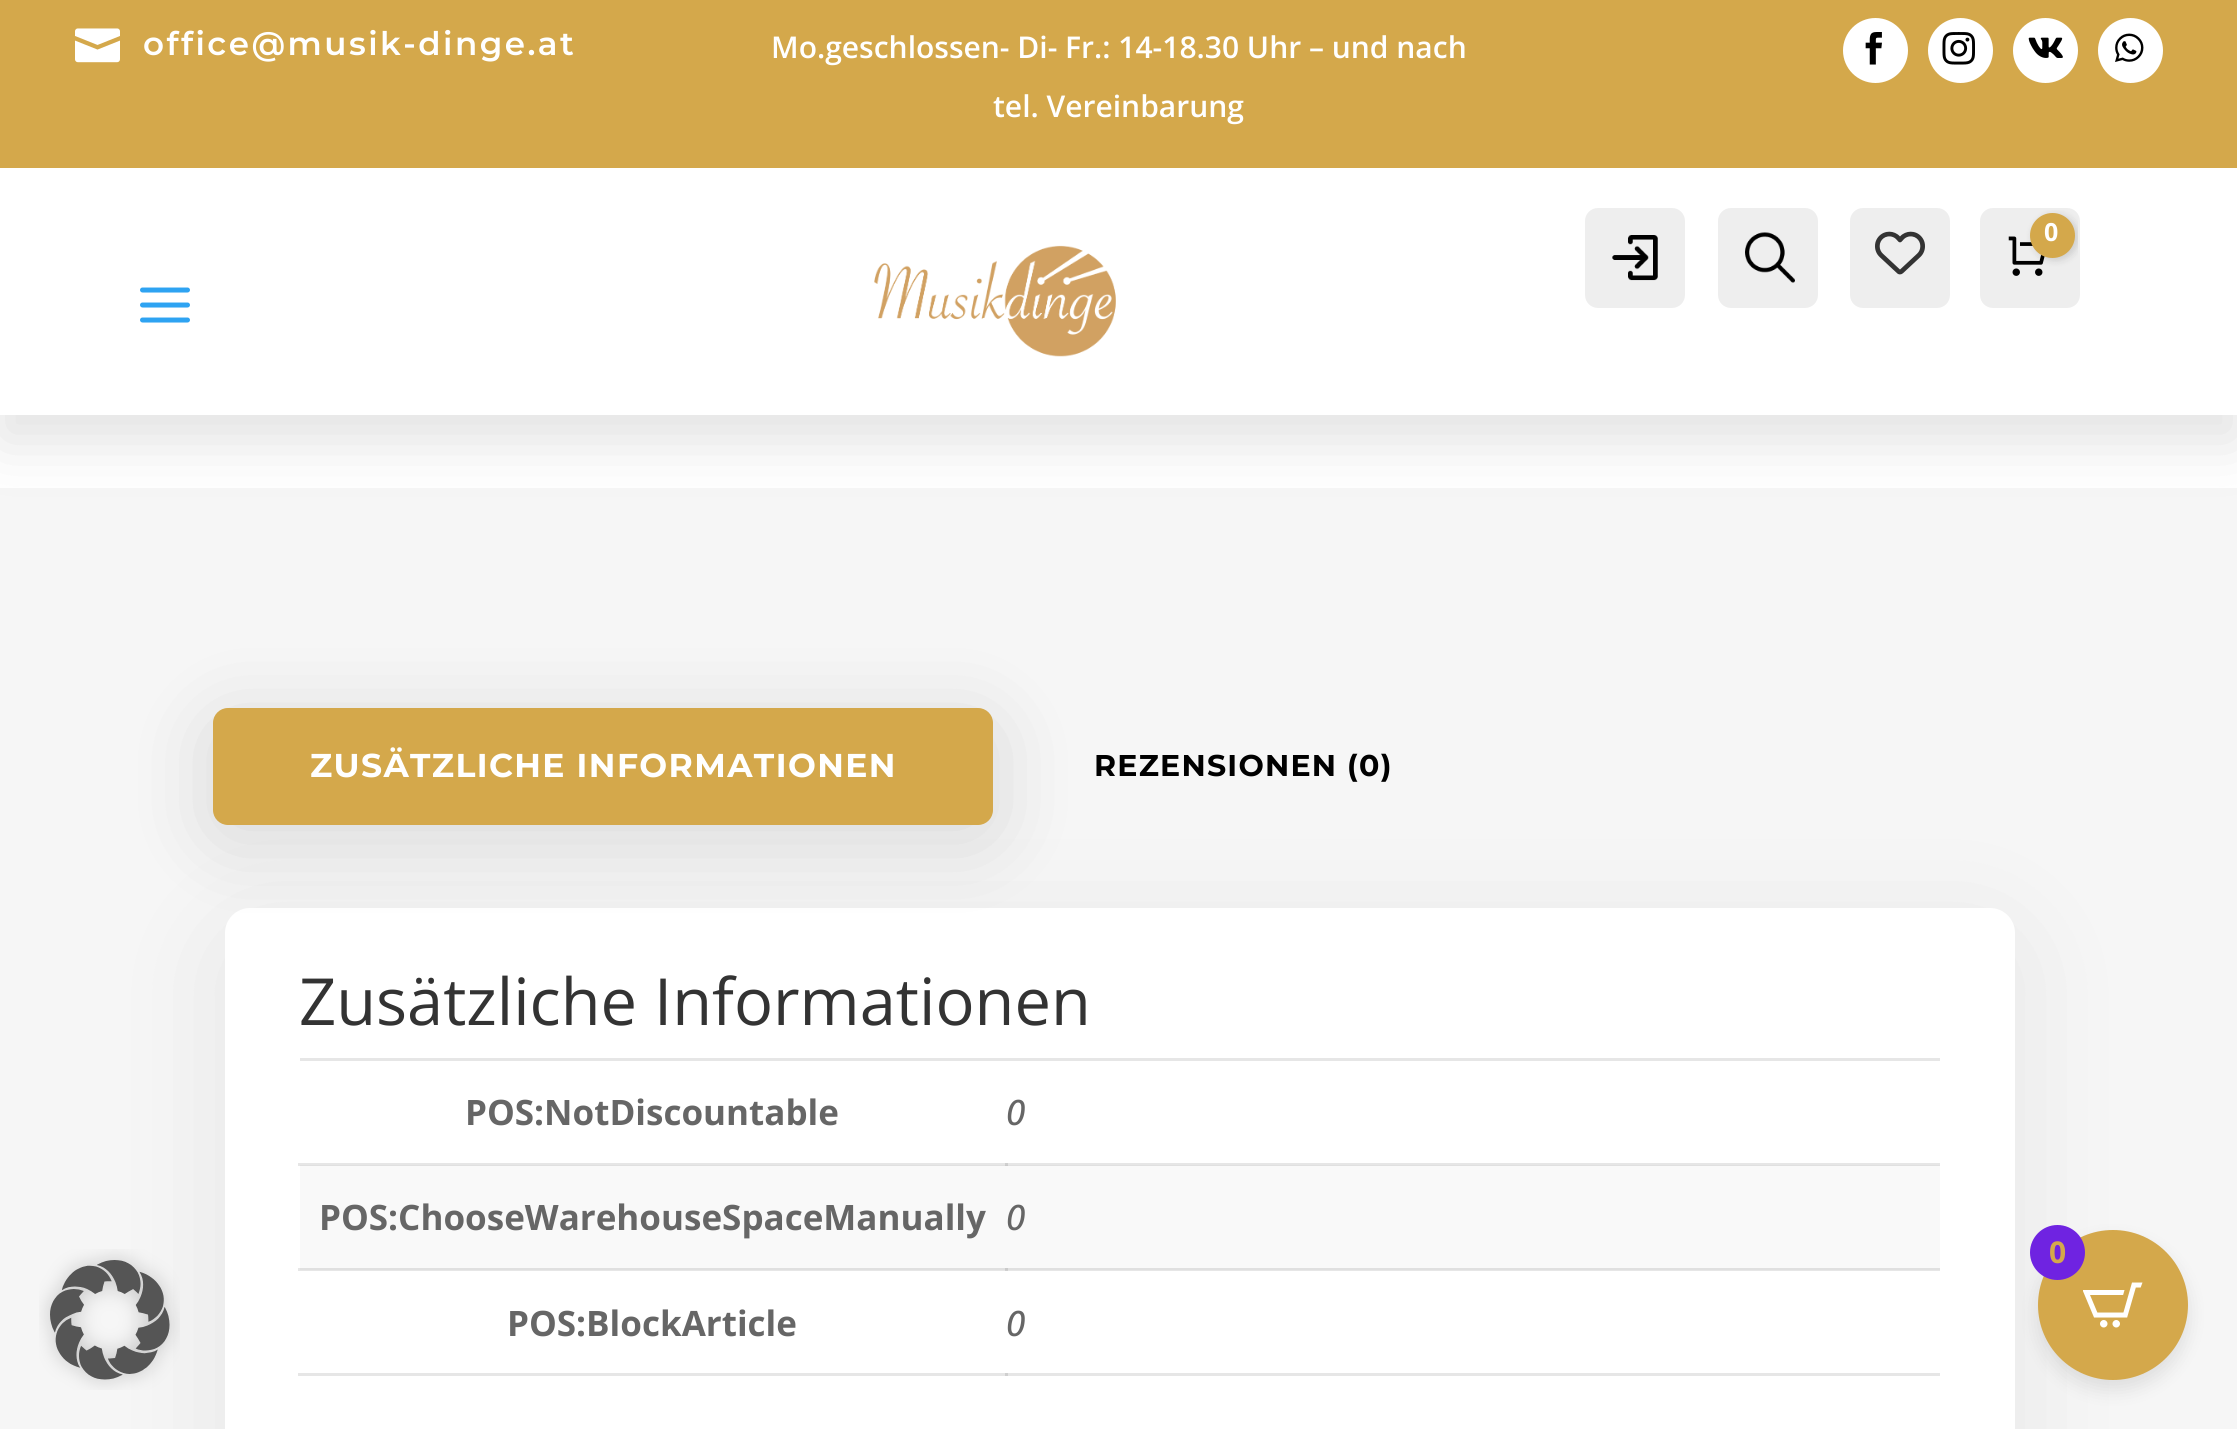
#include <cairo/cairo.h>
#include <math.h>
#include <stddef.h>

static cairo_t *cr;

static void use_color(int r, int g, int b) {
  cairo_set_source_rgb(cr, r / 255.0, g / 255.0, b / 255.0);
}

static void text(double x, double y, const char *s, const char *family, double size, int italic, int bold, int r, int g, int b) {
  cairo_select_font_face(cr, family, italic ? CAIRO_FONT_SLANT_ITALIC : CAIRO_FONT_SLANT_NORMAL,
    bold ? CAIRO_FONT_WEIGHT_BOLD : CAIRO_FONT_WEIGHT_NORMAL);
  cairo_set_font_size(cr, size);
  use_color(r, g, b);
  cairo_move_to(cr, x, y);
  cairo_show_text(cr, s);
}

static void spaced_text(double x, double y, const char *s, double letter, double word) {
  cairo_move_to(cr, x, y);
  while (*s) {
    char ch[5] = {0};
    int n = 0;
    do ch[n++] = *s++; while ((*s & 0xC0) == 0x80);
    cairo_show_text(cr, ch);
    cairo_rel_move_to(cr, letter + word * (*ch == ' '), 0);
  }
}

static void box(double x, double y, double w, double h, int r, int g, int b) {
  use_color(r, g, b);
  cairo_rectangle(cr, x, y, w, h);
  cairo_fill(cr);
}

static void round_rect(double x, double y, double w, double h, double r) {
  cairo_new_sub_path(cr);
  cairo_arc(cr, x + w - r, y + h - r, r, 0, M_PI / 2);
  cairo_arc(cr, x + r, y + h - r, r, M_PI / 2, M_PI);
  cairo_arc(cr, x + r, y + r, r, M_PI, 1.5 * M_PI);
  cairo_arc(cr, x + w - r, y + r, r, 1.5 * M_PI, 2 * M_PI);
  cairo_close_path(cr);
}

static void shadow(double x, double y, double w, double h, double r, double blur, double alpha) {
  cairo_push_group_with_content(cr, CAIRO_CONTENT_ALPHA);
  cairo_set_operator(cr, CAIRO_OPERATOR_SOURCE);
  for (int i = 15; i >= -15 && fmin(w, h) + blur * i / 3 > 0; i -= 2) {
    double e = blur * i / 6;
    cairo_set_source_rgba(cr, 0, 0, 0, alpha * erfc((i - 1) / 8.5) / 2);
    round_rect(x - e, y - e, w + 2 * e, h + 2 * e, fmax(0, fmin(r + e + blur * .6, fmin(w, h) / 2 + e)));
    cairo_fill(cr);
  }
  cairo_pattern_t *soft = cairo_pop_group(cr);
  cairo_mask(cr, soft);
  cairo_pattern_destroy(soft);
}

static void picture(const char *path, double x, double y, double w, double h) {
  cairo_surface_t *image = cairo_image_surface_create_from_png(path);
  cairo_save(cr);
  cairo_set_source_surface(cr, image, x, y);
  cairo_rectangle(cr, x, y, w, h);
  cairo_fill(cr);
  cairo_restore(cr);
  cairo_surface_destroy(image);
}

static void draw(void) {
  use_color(255, 255, 255);
  cairo_paint(cr);
  box(0, 488, 2237, 941, 246, 246, 246);
  use_color(0, 0, 0);
  shadow(0, 25, 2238, 415, 0, 31, 0.12);
  box(0, 0, 2237, 168, 212, 168, 75);
  picture("img_01.png", 75, 28, 45, 35);
  use_color(255, 255, 255);
  cairo_arc(cr, 1875.5, 50.5, 32.5, 0, 2 * M_PI);
  cairo_fill(cr);
  picture("img_02.png", 1865, 32, 17, 33);
  cairo_arc(cr, 1960.5, 50.5, 32.5, 0, 2 * M_PI);
  cairo_fill(cr);
  picture("img_03.png", 1942, 32, 33, 33);
  cairo_arc(cr, 2045.5, 50.5, 32.5, 0, 2 * M_PI);
  cairo_fill(cr);
  picture("img_04.png", 2028, 37, 35, 21);
  cairo_arc(cr, 2130.5, 50.5, 32.5, 0, 2 * M_PI);
  cairo_fill(cr);
  picture("img_05.png", 2115, 33, 29, 29);
  box(0, 168, 2237, 247, 255, 255, 255);
  use_color(238, 238, 238);
  round_rect(1585, 208, 100, 100, 13);
  cairo_fill(cr);
  picture("img_06.png", 1612, 235, 46, 46);
  round_rect(1718, 208, 100, 100, 13);
  cairo_fill(cr);
  picture("img_07.png", 1745, 232, 50, 51);
  round_rect(1850, 208, 100, 100, 13);
  cairo_fill(cr);
  picture("img_08.png", 1875, 231, 50, 44);
  round_rect(1980, 208, 100, 100, 13);
  cairo_fill(cr);
  picture("img_09.png", 2008, 236, 37, 40);
  cairo_save(cr);
  round_rect(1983, 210, 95, 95, 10);
  cairo_clip(cr);
  use_color(0, 0, 0);
  shadow(2033, 215, 45, 45, 22.5, 4, 0.15);
  cairo_restore(cr);
  use_color(212, 168, 75);
  cairo_arc(cr, 2052.5, 235.5, 22.5, 0, 2 * M_PI);
  cairo_fill(cr);
  picture("img_10.png", 140, 287, 50, 36);
  picture("img_11.png", 874, 245, 242, 112);
  use_color(0, 0, 0);
  shadow(225, 933, 1790, 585, 25, 62.5, 0.07);
  use_color(255, 255, 255);
  round_rect(225, 908, 1790, 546, 25);
  cairo_fill(cr);
  use_color(0, 0, 0);
  shadow(213, 723, 780, 115, 15, 41, 0.13);
  use_color(212, 168, 75);
  round_rect(213, 708, 780, 117, 15);
  cairo_fill(cr);
  box(298, 1163, 710, 3, 230, 230, 230);
  box(1005, 1163, 935, 2, 230, 230, 230);
  box(1005, 1163, 3, 2, 207, 207, 207);
  box(298, 1268, 710, 3, 230, 230, 230);
  box(1005, 1270, 935, 1, 230, 230, 230);
  box(1005, 1270, 3, 1, 207, 207, 207);
  box(298, 1373, 1642, 3, 230, 230, 230);
  box(300, 1058, 1640, 3, 230, 230, 230);
  box(300, 1166, 1640, 102, 249, 249, 249);
  box(300, 1165, 1640, 1, 224, 224, 224);
  box(300, 1268, 1640, 2, 224, 224, 224);
  box(1005, 1165, 3, 1, 202, 202, 202);
  box(1005, 1268, 3, 2, 202, 202, 202);
  box(1005, 1373, 3, 3, 207, 207, 207);
  picture("img_12.png", 39, 1249, 141, 141);
  use_color(0, 0, 0);
  shadow(2038, 1240, 150, 150, 75, 9, 0.1);
  use_color(212, 168, 75);
  cairo_arc(cr, 2113, 1305, 75, 0, 2 * M_PI);
  cairo_fill(cr);
  use_color(111, 35, 225);
  cairo_arc(cr, 2057.5, 1252.5, 27.5, 0, 2 * M_PI);
  cairo_fill(cr);
  picture("img_13.png", 2083, 1282, 60, 46);
  cairo_select_font_face(cr, "Montserrat SemiBold", CAIRO_FONT_SLANT_NORMAL, CAIRO_FONT_WEIGHT_NORMAL);
  cairo_set_font_size(cr, 32.5);
  use_color(255, 255, 255);
  spaced_text(143, 55, "office@musik-dinge.at", 2.5, 0);
  text(771, 58, "Mo.geschlossen- Di- Fr.: 14-18.30 Uhr – und nach", "Open Sans SemiBold", 30, 0, 0, 255, 255, 255);
  text(993, 117, "tel. Vereinbarung", "Open Sans SemiBold", 30, 0, 0, 255, 255, 255);
  text(2044, 241, "0", "Open Sans", 25, 0, 1, 255, 255, 255);
  cairo_select_font_face(cr, "Montserrat", CAIRO_FONT_SLANT_NORMAL, CAIRO_FONT_WEIGHT_BOLD);
  cairo_set_font_size(cr, 33);
  spaced_text(310, 777, "ZUSÄTZLICHE INFORMATIONEN", 1.4, 0);
  cairo_set_font_size(cr, 30);
  use_color(0, 0, 0);
  spaced_text(1094, 776, "REZENSIONEN (0)", 1.25, 0);
  text(299, 1025, "Zusätzliche Informationen", "Open Sans", 65, 0, 0, 51, 51, 51);
  text(465, 1125, "POS:NotDiscountable", "Open Sans", 35, 0, 1, 102, 102, 102);
  text(1006, 1125, "0", "Open Sans Medium", 35, 1, 0, 102, 102, 102);
  text(319, 1230, "POS:ChooseWarehouseSpaceManually", "Open Sans", 35, 0, 1, 102, 102, 102);
  text(1006, 1230, "0", "Open Sans Medium", 35, 1, 0, 102, 102, 102);
  text(507, 1336, "POS:BlockArticle", "Open Sans", 35, 0, 1, 102, 102, 102);
  text(1006, 1336, "0", "Open Sans Medium", 35, 1, 0, 102, 102, 102);
  text(2049, 1263, "0", "Open Sans", 30, 0, 1, 212, 168, 75);
}

int main(void) {
  cairo_surface_t *surface = cairo_image_surface_create(CAIRO_FORMAT_RGB24, 2237, 1429);
  cr = cairo_create(surface);
  cairo_font_options_t *options = cairo_font_options_create();
  cairo_font_options_set_hint_metrics(options, CAIRO_HINT_METRICS_OFF);
  cairo_font_options_set_hint_style(options, CAIRO_HINT_STYLE_NONE);
  cairo_set_font_options(cr, options);
  cairo_set_miter_limit(cr, 4);
  draw();
  cairo_surface_write_to_png(surface, "out.png");
  cairo_font_options_destroy(options);
  cairo_destroy(cr);
  cairo_surface_destroy(surface);
  return 0;
}
